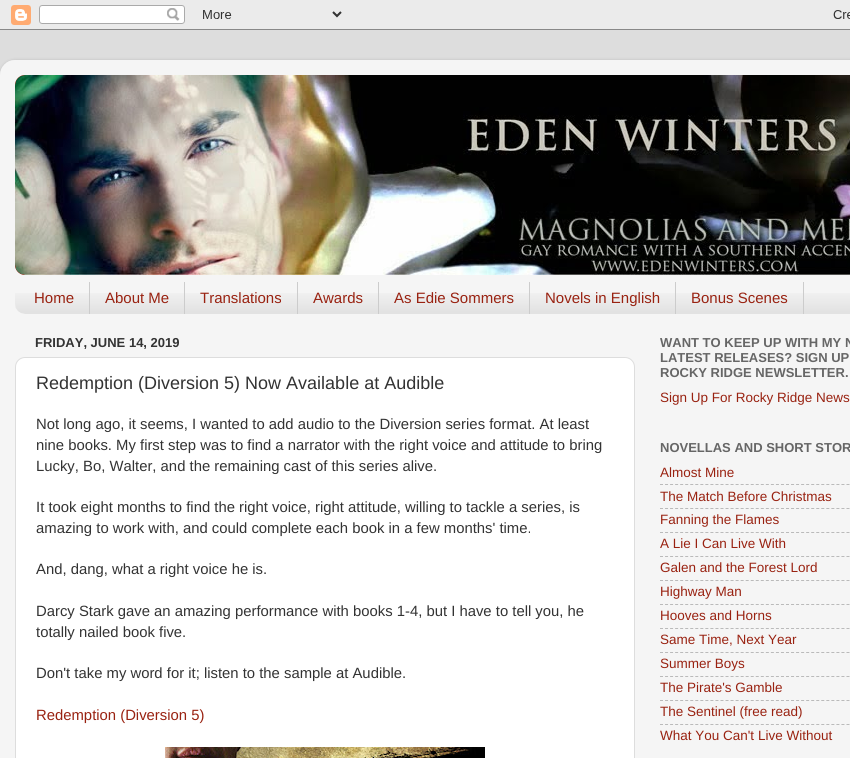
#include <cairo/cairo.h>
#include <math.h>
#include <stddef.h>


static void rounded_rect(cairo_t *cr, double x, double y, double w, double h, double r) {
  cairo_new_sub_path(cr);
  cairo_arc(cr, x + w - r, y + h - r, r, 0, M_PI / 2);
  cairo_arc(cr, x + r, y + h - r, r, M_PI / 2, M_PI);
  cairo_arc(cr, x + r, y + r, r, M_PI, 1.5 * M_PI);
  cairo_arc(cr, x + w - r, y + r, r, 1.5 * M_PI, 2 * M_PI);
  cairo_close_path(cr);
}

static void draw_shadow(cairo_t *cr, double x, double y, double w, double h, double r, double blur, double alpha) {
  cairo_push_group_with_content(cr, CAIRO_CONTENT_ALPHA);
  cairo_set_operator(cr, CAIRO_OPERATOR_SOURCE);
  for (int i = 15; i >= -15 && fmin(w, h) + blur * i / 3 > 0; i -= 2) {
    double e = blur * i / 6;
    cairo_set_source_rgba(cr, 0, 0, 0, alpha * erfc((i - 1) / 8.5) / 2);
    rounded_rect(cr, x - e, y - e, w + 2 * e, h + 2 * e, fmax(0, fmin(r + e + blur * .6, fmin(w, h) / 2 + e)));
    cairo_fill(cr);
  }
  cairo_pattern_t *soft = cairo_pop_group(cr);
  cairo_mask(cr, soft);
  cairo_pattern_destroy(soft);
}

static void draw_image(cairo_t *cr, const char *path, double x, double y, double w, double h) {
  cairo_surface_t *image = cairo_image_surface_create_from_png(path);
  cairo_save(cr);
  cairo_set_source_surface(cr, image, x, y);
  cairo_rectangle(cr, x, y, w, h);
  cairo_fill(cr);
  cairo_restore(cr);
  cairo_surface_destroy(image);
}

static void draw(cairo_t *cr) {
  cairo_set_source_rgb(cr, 221 / 255.0, 221 / 255.0, 221 / 255.0);
  cairo_paint(cr);
  draw_image(cr, "images/1.png", 0, 0, 850, 30);
  cairo_save(cr);
  cairo_set_fill_rule(cr, CAIRO_FILL_RULE_EVEN_ODD);
  cairo_new_path(cr);
  cairo_move_to(cr, 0, 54);
  cairo_line_to(cr, 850, 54);
  cairo_line_to(cr, 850, 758);
  cairo_line_to(cr, 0, 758);
  cairo_close_path(cr);
  cairo_move_to(cr, 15, 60);
  cairo_line_to(cr, 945, 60);
  cairo_curve_to(cr, 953.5, 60, 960, 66.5, 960, 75);
  cairo_line_to(cr, 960, 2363);
  cairo_curve_to(cr, 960, 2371.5, 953.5, 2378, 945, 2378);
  cairo_line_to(cr, 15, 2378);
  cairo_curve_to(cr, 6.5, 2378, 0, 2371.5, 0, 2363);
  cairo_line_to(cr, 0, 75);
  cairo_curve_to(cr, 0, 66.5, 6.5, 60, 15, 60);
  cairo_close_path(cr);
  cairo_clip(cr);
  cairo_set_source_rgb(cr, 0, 0, 0);
  draw_shadow(cr, 0, 60, 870, 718, 15, 1.5, 0.15);
  cairo_restore(cr);
  draw_image(cr, "images/2.png", 0, 60, 850, 698);
  cairo_set_source_rgb(cr, 153 / 255.0, 34 / 255.0, 17 / 255.0);
  rounded_rect(cr, 15, 75, 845, 200, 10);
  cairo_fill(cr);
  draw_image(cr, "images/3.png", 15, 75, 10, 10);
  draw_image(cr, "images/4.png", 15, 75, 835, 200);
  draw_image(cr, "images/5.png", 15, 293, 835, 21);
  cairo_set_source_rgb(cr, 204 / 255.0, 204 / 255.0, 204 / 255.0);
  cairo_rectangle(cr, 89, 282, 1, 32);
  cairo_fill(cr);
  cairo_rectangle(cr, 184, 282, 1, 32);
  cairo_fill(cr);
  cairo_rectangle(cr, 297, 282, 1, 32);
  cairo_fill(cr);
  cairo_rectangle(cr, 378, 282, 1, 32);
  cairo_fill(cr);
  cairo_rectangle(cr, 529, 282, 1, 32);
  cairo_fill(cr);
  cairo_rectangle(cr, 675, 282, 1, 32);
  cairo_fill(cr);
  cairo_rectangle(cr, 803, 282, 1, 32);
  cairo_fill(cr);
  cairo_set_source_rgb(cr, 1, 1, 1);
  rounded_rect(cr, 15.5, 357.5, 619, 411, 9.5);
  cairo_fill_preserve(cr);
  cairo_set_source_rgb(cr, 221 / 255.0, 221 / 255.0, 221 / 255.0);
  cairo_set_line_width(cr, 1);
  cairo_stroke(cr);
  draw_image(cr, "images/6.png", 165, 747, 320, 11);
  cairo_new_path(cr);
  cairo_move_to(cr, 660, 484.5);
  cairo_line_to(cr, 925, 484.5);
  cairo_set_source_rgb(cr, 186 / 255.0, 186 / 255.0, 186 / 255.0);
  cairo_set_dash(cr, (double[]){3, 2.04}, 2, 0);
  cairo_stroke(cr);
  cairo_new_path(cr);
  cairo_move_to(cr, 660, 508.5);
  cairo_line_to(cr, 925, 508.5);
  cairo_stroke(cr);
  cairo_new_path(cr);
  cairo_move_to(cr, 660, 532.5);
  cairo_line_to(cr, 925, 532.5);
  cairo_stroke(cr);
  cairo_new_path(cr);
  cairo_move_to(cr, 660, 556.5);
  cairo_line_to(cr, 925, 556.5);
  cairo_stroke(cr);
  cairo_new_path(cr);
  cairo_move_to(cr, 660, 580.5);
  cairo_line_to(cr, 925, 580.5);
  cairo_stroke(cr);
  cairo_new_path(cr);
  cairo_move_to(cr, 660, 604.5);
  cairo_line_to(cr, 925, 604.5);
  cairo_stroke(cr);
  cairo_new_path(cr);
  cairo_move_to(cr, 660, 628.5);
  cairo_line_to(cr, 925, 628.5);
  cairo_stroke(cr);
  cairo_new_path(cr);
  cairo_move_to(cr, 660, 652.5);
  cairo_line_to(cr, 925, 652.5);
  cairo_stroke(cr);
  cairo_new_path(cr);
  cairo_move_to(cr, 660, 676.5);
  cairo_line_to(cr, 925, 676.5);
  cairo_stroke(cr);
  cairo_new_path(cr);
  cairo_move_to(cr, 660, 700.5);
  cairo_line_to(cr, 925, 700.5);
  cairo_stroke(cr);
  cairo_new_path(cr);
  cairo_move_to(cr, 660, 724.5);
  cairo_line_to(cr, 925, 724.5);
  cairo_stroke(cr);
  cairo_select_font_face(cr, "Liberation Sans", CAIRO_FONT_SLANT_NORMAL, CAIRO_FONT_WEIGHT_NORMAL);
  cairo_set_font_size(cr, 15);
  cairo_set_source_rgb(cr, 153 / 255.0, 34 / 255.0, 17 / 255.0);
  cairo_move_to(cr, 34, 303);
  cairo_show_text(cr, "Home");
  cairo_move_to(cr, 105, 303);
  cairo_show_text(cr, "About Me");
  cairo_move_to(cr, 200, 303);
  cairo_show_text(cr, "Translations");
  cairo_move_to(cr, 313, 303);
  cairo_show_text(cr, "Awards");
  cairo_move_to(cr, 394, 303);
  cairo_show_text(cr, "As Edie Sommers");
  cairo_move_to(cr, 545, 303);
  cairo_show_text(cr, "Novels in English");
  cairo_move_to(cr, 691, 303);
  cairo_show_text(cr, "Bonus Scenes");
  cairo_select_font_face(cr, "Liberation Sans", CAIRO_FONT_SLANT_NORMAL, CAIRO_FONT_WEIGHT_BOLD);
  cairo_set_font_size(cr, 13);
  cairo_set_source_rgb(cr, 51 / 255.0, 51 / 255.0, 51 / 255.0);
  cairo_move_to(cr, 35, 347);
  cairo_show_text(cr, "FRIDAY, JUNE 14, 2019");
  cairo_select_font_face(cr, "Liberation Sans", CAIRO_FONT_SLANT_NORMAL, CAIRO_FONT_WEIGHT_NORMAL);
  cairo_set_font_size(cr, 18);
  cairo_move_to(cr, 36, 389);
  cairo_show_text(cr, "Redemption (Diversion 5) Now Available at Audible");
  cairo_set_font_size(cr, 14.85);
  cairo_move_to(cr, 36, 429);
  cairo_show_text(cr, "Not long ago, it seems, I wanted to add audio to the Diversion series format. At least");
  cairo_move_to(cr, 36, 450);
  cairo_show_text(cr, "nine books. My first step was to find a narrator with the right voice and attitude to bring");
  cairo_move_to(cr, 36, 471);
  cairo_show_text(cr, "Lucky, Bo, Walter, and the remaining cast of this series alive.");
  cairo_move_to(cr, 36, 512);
  cairo_show_text(cr, "It took eight months to find the right voice, right attitude, willing to tackle a series, is");
  cairo_move_to(cr, 36, 533);
  cairo_show_text(cr, "amazing to work with, and could complete each book in a few months' time.");
  cairo_move_to(cr, 36, 574);
  cairo_show_text(cr, "And, dang, what a right voice he is.");
  cairo_move_to(cr, 36, 616);
  cairo_show_text(cr, "Darcy Stark gave an amazing performance with books 1-4, but I have to tell you, he");
  cairo_move_to(cr, 36, 637);
  cairo_show_text(cr, "totally nailed book five.");
  cairo_move_to(cr, 36, 678);
  cairo_show_text(cr, "Don't take my word for it; listen to the sample at Audible.");
  cairo_set_source_rgb(cr, 153 / 255.0, 34 / 255.0, 17 / 255.0);
  cairo_move_to(cr, 36, 720);
  cairo_show_text(cr, "Redemption (Diversion 5)");
  cairo_select_font_face(cr, "Liberation Sans", CAIRO_FONT_SLANT_NORMAL, CAIRO_FONT_WEIGHT_BOLD);
  cairo_set_font_size(cr, 13);
  cairo_set_source_rgb(cr, 102 / 255.0, 102 / 255.0, 102 / 255.0);
  cairo_move_to(cr, 660, 347);
  cairo_show_text(cr, "WANT TO KEEP UP WITH MY N");
  cairo_move_to(cr, 660, 362);
  cairo_show_text(cr, "LATEST RELEASES? SIGN UP");
  cairo_move_to(cr, 660, 377);
  cairo_show_text(cr, "ROCKY RIDGE NEWSLETTER.");
  cairo_select_font_face(cr, "Liberation Sans", CAIRO_FONT_SLANT_NORMAL, CAIRO_FONT_WEIGHT_NORMAL);
  cairo_set_font_size(cr, 13.5);
  cairo_set_source_rgb(cr, 153 / 255.0, 34 / 255.0, 17 / 255.0);
  cairo_move_to(cr, 660, 402);
  cairo_show_text(cr, "Sign Up For Rocky Ridge News");
  cairo_select_font_face(cr, "Liberation Sans", CAIRO_FONT_SLANT_NORMAL, CAIRO_FONT_WEIGHT_BOLD);
  cairo_set_font_size(cr, 13);
  cairo_set_source_rgb(cr, 102 / 255.0, 102 / 255.0, 102 / 255.0);
  cairo_move_to(cr, 660, 452);
  cairo_show_text(cr, "NOVELLAS AND SHORT STOR");
  cairo_select_font_face(cr, "Liberation Sans", CAIRO_FONT_SLANT_NORMAL, CAIRO_FONT_WEIGHT_NORMAL);
  cairo_set_font_size(cr, 13.5);
  cairo_set_source_rgb(cr, 153 / 255.0, 34 / 255.0, 17 / 255.0);
  cairo_move_to(cr, 660, 477);
  cairo_show_text(cr, "Almost Mine");
  cairo_move_to(cr, 660, 501);
  cairo_show_text(cr, "The Match Before Christmas");
  cairo_move_to(cr, 660, 524);
  cairo_show_text(cr, "Fanning the Flames");
  cairo_move_to(cr, 660, 548);
  cairo_show_text(cr, "A Lie I Can Live With");
  cairo_move_to(cr, 660, 572);
  cairo_show_text(cr, "Galen and the Forest Lord");
  cairo_move_to(cr, 660, 596);
  cairo_show_text(cr, "Highway Man");
  cairo_move_to(cr, 660, 620);
  cairo_show_text(cr, "Hooves and Horns");
  cairo_move_to(cr, 660, 644);
  cairo_show_text(cr, "Same Time, Next Year");
  cairo_move_to(cr, 660, 668);
  cairo_show_text(cr, "Summer Boys");
  cairo_move_to(cr, 660, 692);
  cairo_show_text(cr, "The Pirate's Gamble");
  cairo_move_to(cr, 660, 716);
  cairo_show_text(cr, "The Sentinel (free read)");
  cairo_move_to(cr, 660, 740);
  cairo_show_text(cr, "What You Can't Live Without");
}

int main(void) {
  cairo_surface_t *surface = cairo_image_surface_create(CAIRO_FORMAT_RGB24, 850, 758);
  cairo_t *cr = cairo_create(surface);
  cairo_font_options_t *options = cairo_font_options_create();
  cairo_font_options_set_hint_metrics(options, CAIRO_HINT_METRICS_OFF);
  cairo_font_options_set_hint_style(options, CAIRO_HINT_STYLE_NONE);
  cairo_set_font_options(cr, options);
  cairo_set_miter_limit(cr, 4);
  draw(cr);
  cairo_surface_write_to_png(surface, "out.png");
  cairo_font_options_destroy(options);
  cairo_destroy(cr);
  cairo_surface_destroy(surface);
  return 0;
}
